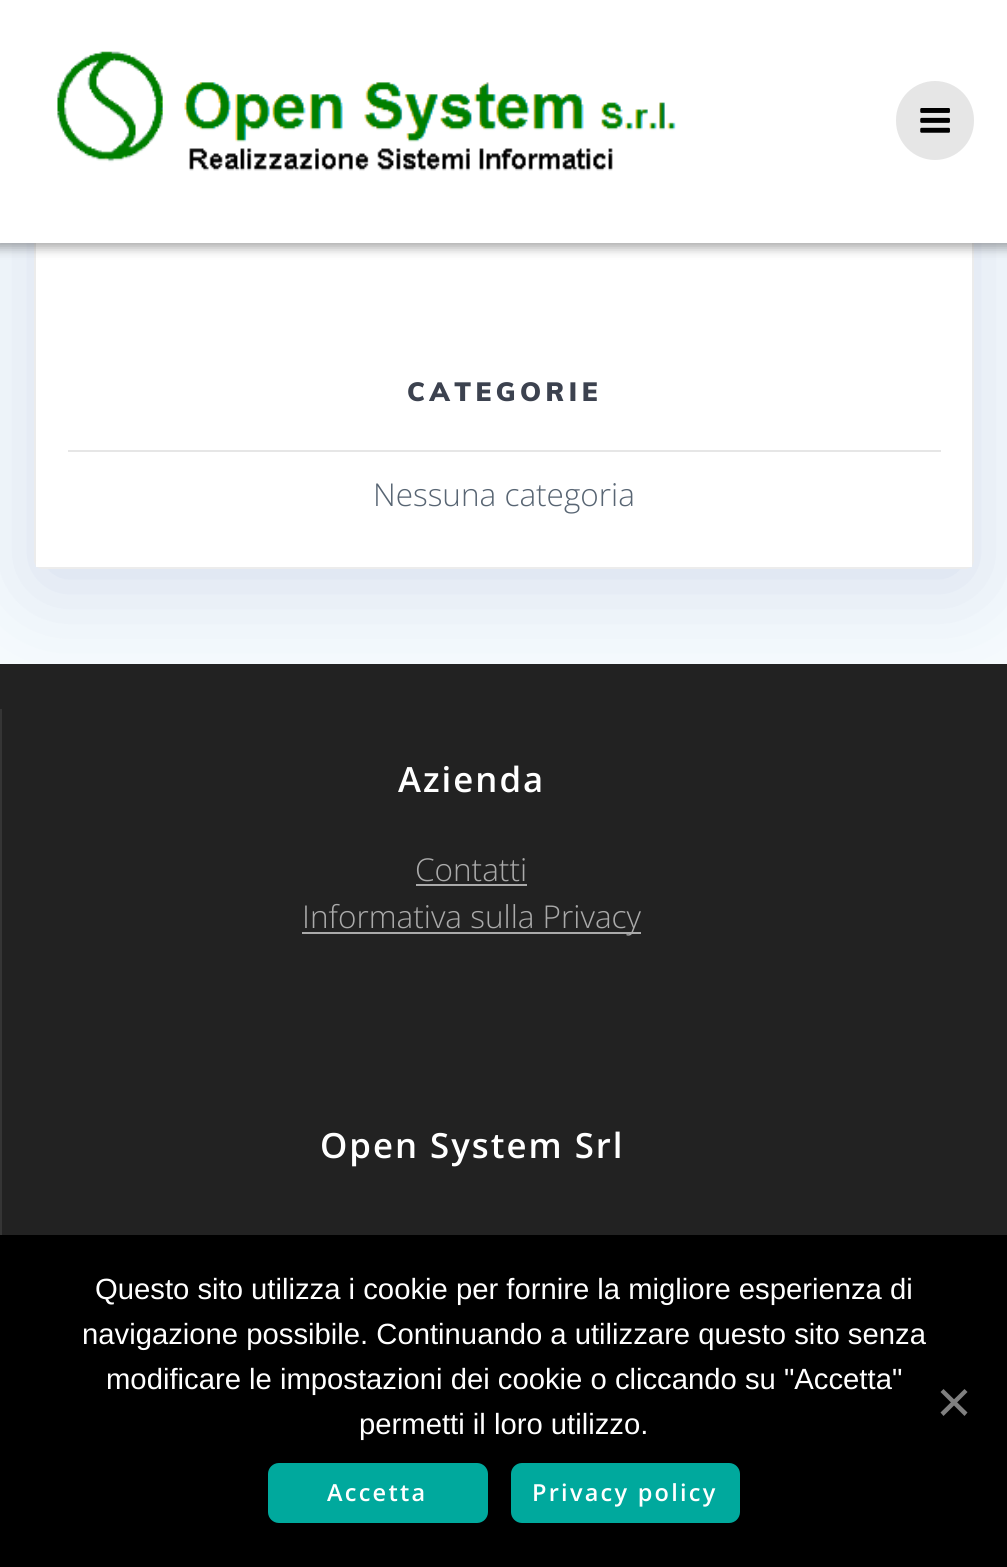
#include <cairo/cairo.h>
#include <math.h>
#include <stddef.h>


static void draw_spaced(cairo_t *cr, double x, double y, const char *s, double letter, double word) {
  cairo_move_to(cr, x, y);
  while (*s) {
    char ch[5] = {0};
    int n = 0;
    do ch[n++] = *s++; while ((*s & 0xC0) == 0x80);
    cairo_show_text(cr, ch);
    cairo_rel_move_to(cr, letter + word * (*ch == ' '), 0);
  }
}

static void rounded_rect(cairo_t *cr, double x, double y, double w, double h, double r) {
  cairo_new_sub_path(cr);
  cairo_arc(cr, x + w - r, y + h - r, r, 0, M_PI / 2);
  cairo_arc(cr, x + r, y + h - r, r, M_PI / 2, M_PI);
  cairo_arc(cr, x + r, y + r, r, M_PI, 1.5 * M_PI);
  cairo_arc(cr, x + w - r, y + r, r, 1.5 * M_PI, 2 * M_PI);
  cairo_close_path(cr);
}

static void draw_shadow(cairo_t *cr, double x, double y, double w, double h, double r, double blur, double alpha) {
  cairo_push_group_with_content(cr, CAIRO_CONTENT_ALPHA);
  cairo_set_operator(cr, CAIRO_OPERATOR_SOURCE);
  for (int i = 15; i >= -15 && fmin(w, h) + blur * i / 3 > 0; i -= 2) {
    double e = blur * i / 6;
    cairo_set_source_rgba(cr, 0, 0, 0, alpha * erfc((i - 1) / 8.5) / 2);
    rounded_rect(cr, x - e, y - e, w + 2 * e, h + 2 * e, fmax(0, fmin(r + e + blur * .6, fmin(w, h) / 2 + e)));
    cairo_fill(cr);
  }
  cairo_pattern_t *soft = cairo_pop_group(cr);
  cairo_mask(cr, soft);
  cairo_pattern_destroy(soft);
}

static void draw_image(cairo_t *cr, const char *path, double x, double y, double w, double h) {
  cairo_surface_t *image = cairo_image_surface_create_from_png(path);
  cairo_save(cr);
  cairo_set_source_surface(cr, image, x, y);
  cairo_rectangle(cr, x, y, w, h);
  cairo_fill(cr);
  cairo_restore(cr);
  cairo_surface_destroy(image);
}

static void draw(cairo_t *cr) {
  cairo_set_source_rgb(cr, 34 / 255.0, 34 / 255.0, 34 / 255.0);
  cairo_paint(cr);
  cairo_set_source_rgb(cr, 245 / 255.0, 250 / 255.0, 253 / 255.0);
  cairo_rectangle(cr, 0, 243, 1007, 421);
  cairo_fill(cr);
  cairo_set_source_rgb(cr, 53 / 255.0, 53 / 255.0, 53 / 255.0);
  cairo_rectangle(cr, 0, 709, 2, 526);
  cairo_fill(cr);
  cairo_set_source_rgb(cr, 35 / 255.0, 69 / 255.0, 152 / 255.0);
  draw_shadow(cr, 34, -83, 940, 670, 9, 44.5, 0.15);
  cairo_set_source_rgb(cr, 1, 1, 1);
  rounded_rect(cr, 35, -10, 938, 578, 8);
  cairo_fill_preserve(cr);
  cairo_set_source_rgb(cr, 236 / 255.0, 236 / 255.0, 236 / 255.0);
  cairo_stroke(cr);
  cairo_set_source_rgb(cr, 0, 0, 0);
  draw_shadow(cr, -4, -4, 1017, 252, 0, 5.5, 0.33);
  cairo_set_source_rgb(cr, 1, 1, 1);
  cairo_rectangle(cr, 0, 0, 1007, 243);
  cairo_fill(cr);
  draw_image(cr, "images/1.png", 57, 51, 619, 120);
  cairo_set_source_rgb(cr, 230 / 255.0, 230 / 255.0, 230 / 255.0);
  rounded_rect(cr, 896, 81, 78, 79, 39);
  cairo_fill(cr);
  draw_image(cr, "images/2.png", 920, 108, 30, 25);
  cairo_set_source_rgb(cr, 1, 1, 1);
  cairo_rectangle(cr, 36, 561, 936, 6);
  cairo_fill(cr);
  cairo_set_source_rgb(cr, 230 / 255.0, 230 / 255.0, 230 / 255.0);
  cairo_rectangle(cr, 68, 450, 873, 2);
  cairo_fill(cr);
  cairo_set_source_rgb(cr, 170 / 255.0, 170 / 255.0, 170 / 255.0);
  cairo_rectangle(cr, 416, 884, 111, 2);
  cairo_fill(cr);
  cairo_rectangle(cr, 302, 932, 339, 2);
  cairo_fill(cr);
  cairo_set_source_rgb(cr, 0, 0, 0);
  cairo_rectangle(cr, 0, 1235, 1007, 332);
  cairo_fill(cr);
  cairo_set_source_rgb(cr, 128 / 255.0, 128 / 255.0, 128 / 255.0);
  cairo_new_path(cr);
  cairo_move_to(cr, 964.5, 1389);
  cairo_line_to(cr, 967.5, 1392);
  cairo_line_to(cr, 943.5, 1416);
  cairo_line_to(cr, 940.5, 1412.5);
  cairo_close_path(cr);
  cairo_fill(cr);
  cairo_new_path(cr);
  cairo_move_to(cr, 940.5, 1392);
  cairo_line_to(cr, 943.5, 1389);
  cairo_line_to(cr, 967.5, 1412.5);
  cairo_line_to(cr, 964.5, 1416);
  cairo_close_path(cr);
  cairo_fill(cr);
  cairo_set_source_rgb(cr, 0, 169 / 255.0, 157 / 255.0);
  rounded_rect(cr, 268, 1463, 220, 60, 11);
  cairo_fill(cr);
  rounded_rect(cr, 511, 1463, 229, 60, 11);
  cairo_fill(cr);
  cairo_select_font_face(cr, "Muli Black", CAIRO_FONT_SLANT_NORMAL, CAIRO_FONT_WEIGHT_NORMAL);
  cairo_set_font_size(cr, 26.25);
  cairo_set_source_rgb(cr, 60 / 255.0, 66 / 255.0, 79 / 255.0);
  draw_spaced(cr, 407, 401, "CATEGORIE", 4.5, 0);
  cairo_select_font_face(cr, "Open Sans Light", CAIRO_FONT_SLANT_NORMAL, CAIRO_FONT_WEIGHT_NORMAL);
  cairo_set_font_size(cr, 31.5);
  cairo_set_source_rgb(cr, 88 / 255.0, 101 / 255.0, 115 / 255.0);
  cairo_move_to(cr, 373, 506);
  cairo_show_text(cr, "Nessuna categoria");
  cairo_select_font_face(cr, "Open Sans SemiBold", CAIRO_FONT_SLANT_NORMAL, CAIRO_FONT_WEIGHT_NORMAL);
  cairo_set_font_size(cr, 34.75);
  cairo_set_source_rgb(cr, 1, 1, 1);
  draw_spaced(cr, 398, 792, "Azienda", 2, 0);
  cairo_select_font_face(cr, "Open Sans Light", CAIRO_FONT_SLANT_NORMAL, CAIRO_FONT_WEIGHT_NORMAL);
  cairo_set_font_size(cr, 31.5);
  cairo_set_source_rgb(cr, 170 / 255.0, 170 / 255.0, 170 / 255.0);
  cairo_move_to(cr, 415, 881);
  cairo_show_text(cr, "Contatti");
  cairo_move_to(cr, 302, 928);
  cairo_show_text(cr, "Informativa sulla Privacy");
  cairo_select_font_face(cr, "Open Sans SemiBold", CAIRO_FONT_SLANT_NORMAL, CAIRO_FONT_WEIGHT_NORMAL);
  cairo_set_font_size(cr, 34.75);
  cairo_set_source_rgb(cr, 1, 1, 1);
  draw_spaced(cr, 320, 1158, "Open System Srl", 2, 0);
  cairo_select_font_face(cr, "Liberation Sans", CAIRO_FONT_SLANT_NORMAL, CAIRO_FONT_WEIGHT_NORMAL);
  cairo_set_font_size(cr, 29.25);
  cairo_move_to(cr, 95, 1299);
  cairo_show_text(cr, "Questo sito utilizza i cookie per fornire la migliore esperienza di");
  cairo_move_to(cr, 82, 1344);
  cairo_show_text(cr, "navigazione possibile. Continuando a utilizzare questo sito senza");
  cairo_move_to(cr, 106, 1389);
  cairo_show_text(cr, "modificare le impostazioni dei cookie o cliccando su \"Accetta\"");
  cairo_move_to(cr, 359, 1434);
  cairo_show_text(cr, "permetti il loro utilizzo.");
  cairo_select_font_face(cr, "Open Sans SemiBold", CAIRO_FONT_SLANT_NORMAL, CAIRO_FONT_WEIGHT_NORMAL);
  cairo_set_font_size(cr, 23.5);
  draw_spaced(cr, 327, 1501, "Accetta", 2.25, 0);
  draw_spaced(cr, 532, 1501, "Privacy policy", 2.25, 0);
}

int main(void) {
  cairo_surface_t *surface = cairo_image_surface_create(CAIRO_FORMAT_RGB24, 1007, 1567);
  cairo_t *cr = cairo_create(surface);
  cairo_font_options_t *options = cairo_font_options_create();
  cairo_font_options_set_hint_metrics(options, CAIRO_HINT_METRICS_OFF);
  cairo_font_options_set_hint_style(options, CAIRO_HINT_STYLE_NONE);
  cairo_set_font_options(cr, options);
  cairo_set_miter_limit(cr, 4);
  draw(cr);
  cairo_surface_write_to_png(surface, "out.png");
  cairo_font_options_destroy(options);
  cairo_destroy(cr);
  cairo_surface_destroy(surface);
  return 0;
}
